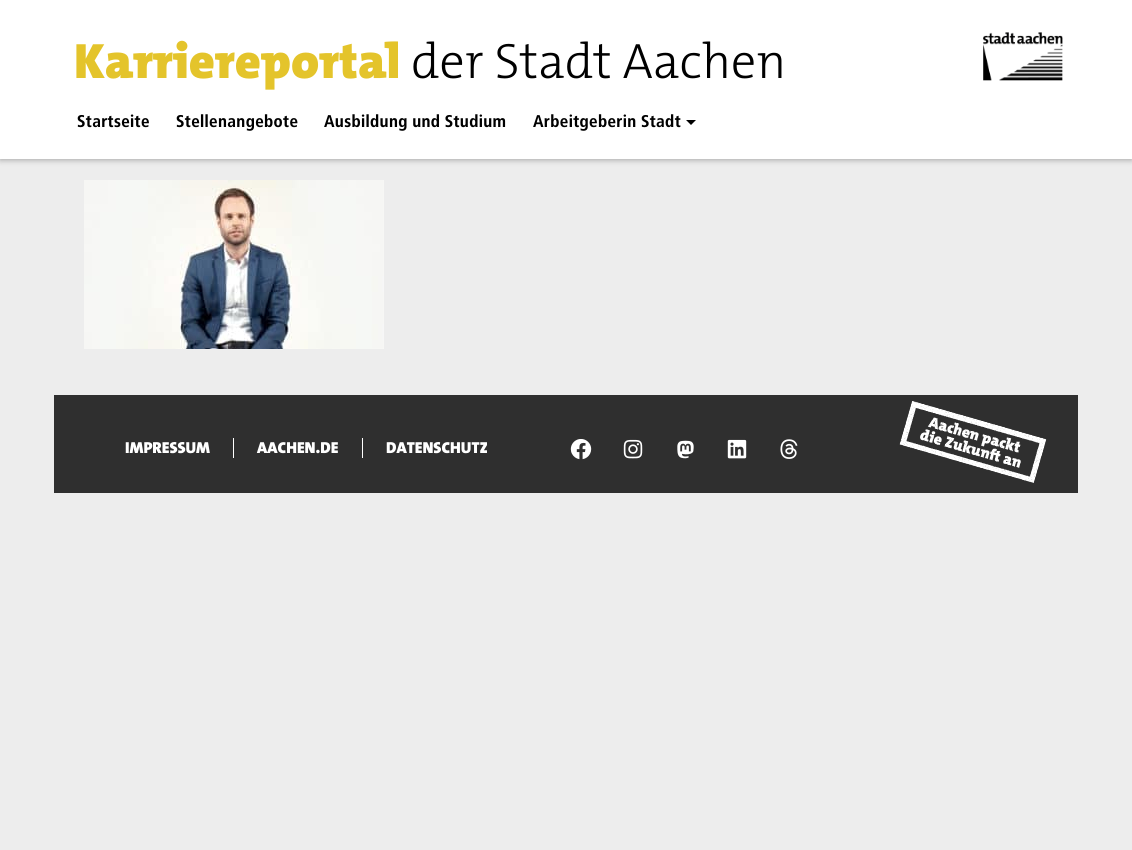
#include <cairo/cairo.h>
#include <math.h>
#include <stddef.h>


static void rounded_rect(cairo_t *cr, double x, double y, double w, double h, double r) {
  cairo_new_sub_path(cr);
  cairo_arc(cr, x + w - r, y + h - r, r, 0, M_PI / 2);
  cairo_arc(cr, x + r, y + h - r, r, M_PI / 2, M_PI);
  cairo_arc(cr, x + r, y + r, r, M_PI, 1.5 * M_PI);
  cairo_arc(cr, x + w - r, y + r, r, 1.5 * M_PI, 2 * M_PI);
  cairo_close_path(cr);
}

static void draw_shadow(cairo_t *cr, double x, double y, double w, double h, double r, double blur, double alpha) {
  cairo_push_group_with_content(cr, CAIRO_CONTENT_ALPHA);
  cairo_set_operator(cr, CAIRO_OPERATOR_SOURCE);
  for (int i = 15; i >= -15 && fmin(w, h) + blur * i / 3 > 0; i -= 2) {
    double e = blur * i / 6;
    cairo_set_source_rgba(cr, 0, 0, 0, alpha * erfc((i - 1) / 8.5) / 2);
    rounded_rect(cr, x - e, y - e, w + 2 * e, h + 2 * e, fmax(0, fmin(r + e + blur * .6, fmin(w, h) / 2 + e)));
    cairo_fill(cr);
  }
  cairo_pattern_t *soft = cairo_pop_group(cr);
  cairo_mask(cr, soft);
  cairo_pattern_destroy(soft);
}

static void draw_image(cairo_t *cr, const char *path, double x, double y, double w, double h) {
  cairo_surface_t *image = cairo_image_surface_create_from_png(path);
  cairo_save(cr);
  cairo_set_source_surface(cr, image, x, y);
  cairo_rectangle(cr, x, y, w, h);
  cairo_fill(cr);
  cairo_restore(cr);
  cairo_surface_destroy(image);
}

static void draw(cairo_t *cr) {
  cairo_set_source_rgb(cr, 237 / 255.0, 237 / 255.0, 237 / 255.0);
  cairo_paint(cr);
  cairo_set_source_rgb(cr, 0, 0, 0);
  draw_shadow(cr, 0, 1, 1132, 159, 0, 3, 0.3);
  cairo_set_source_rgb(cr, 1, 1, 1);
  cairo_rectangle(cr, 0, 0, 1132, 159);
  cairo_fill(cr);
  draw_image(cr, "images/1.png", 983, 32, 80, 49);
  cairo_set_source_rgb(cr, 0, 0, 0);
  cairo_new_path(cr);
  cairo_move_to(cr, 686, 120);
  cairo_line_to(cr, 696, 120);
  cairo_line_to(cr, 691, 125);
  cairo_close_path(cr);
  cairo_fill(cr);
  draw_image(cr, "images/2.png", 84, 180, 300, 169);
  cairo_set_source_rgb(cr, 47 / 255.0, 47 / 255.0, 47 / 255.0);
  cairo_rectangle(cr, 54, 395, 1024, 98);
  cairo_fill(cr);
  cairo_set_source_rgb(cr, 1, 1, 1);
  cairo_rectangle(cr, 233, 438, 1, 20);
  cairo_fill(cr);
  cairo_rectangle(cr, 362, 438, 1, 20);
  cairo_fill(cr);
  draw_image(cr, "images/3.png", 570, 439, 22, 21);
  draw_image(cr, "images/4.png", 623, 439, 20, 20);
  draw_image(cr, "images/5.png", 677, 440, 17, 19);
  draw_image(cr, "images/6.png", 727, 439, 20, 20);
  draw_image(cr, "images/7.png", 780, 439, 18, 20);
  draw_image(cr, "images/8.png", 899, 401, 148, 82);
  cairo_select_font_face(cr, "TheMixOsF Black", CAIRO_FONT_SLANT_NORMAL, CAIRO_FONT_WEIGHT_NORMAL);
  cairo_set_font_size(cr, 50);
  cairo_set_source_rgb(cr, 228 / 255.0, 196 / 255.0, 43 / 255.0);
  cairo_move_to(cr, 74, 78);
  cairo_show_text(cr, "Karriereportal");
  cairo_select_font_face(cr, "TheMixOsF Light", CAIRO_FONT_SLANT_NORMAL, CAIRO_FONT_WEIGHT_NORMAL);
  cairo_set_source_rgb(cr, 0, 0, 0);
  cairo_move_to(cr, 411, 78);
  cairo_show_text(cr, "der Stadt Aachen");
  cairo_select_font_face(cr, "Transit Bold", CAIRO_FONT_SLANT_NORMAL, CAIRO_FONT_WEIGHT_NORMAL);
  cairo_set_font_size(cr, 17);
  cairo_move_to(cr, 77, 127);
  cairo_show_text(cr, "Startseite");
  cairo_move_to(cr, 176, 127);
  cairo_show_text(cr, "Stellenangebote");
  cairo_move_to(cr, 324, 127);
  cairo_show_text(cr, "Ausbildung und Studium");
  cairo_move_to(cr, 533, 127);
  cairo_show_text(cr, "Arbeitgeberin Stadt");
  cairo_select_font_face(cr, "TheMixOsF Black", CAIRO_FONT_SLANT_NORMAL, CAIRO_FONT_WEIGHT_NORMAL);
  cairo_set_font_size(cr, 16);
  cairo_set_source_rgb(cr, 1, 1, 1);
  cairo_move_to(cr, 125, 453);
  cairo_show_text(cr, "IMPRESSUM");
  cairo_move_to(cr, 257, 453);
  cairo_show_text(cr, "AACHEN.DE");
  cairo_move_to(cr, 386, 453);
  cairo_show_text(cr, "DATENSCHUTZ");
}

int main(void) {
  cairo_surface_t *surface = cairo_image_surface_create(CAIRO_FORMAT_RGB24, 1132, 850);
  cairo_t *cr = cairo_create(surface);
  cairo_font_options_t *options = cairo_font_options_create();
  cairo_font_options_set_hint_metrics(options, CAIRO_HINT_METRICS_OFF);
  cairo_font_options_set_hint_style(options, CAIRO_HINT_STYLE_NONE);
  cairo_set_font_options(cr, options);
  cairo_set_miter_limit(cr, 4);
  draw(cr);
  cairo_surface_write_to_png(surface, "out.png");
  cairo_font_options_destroy(options);
  cairo_destroy(cr);
  cairo_surface_destroy(surface);
  return 0;
}
